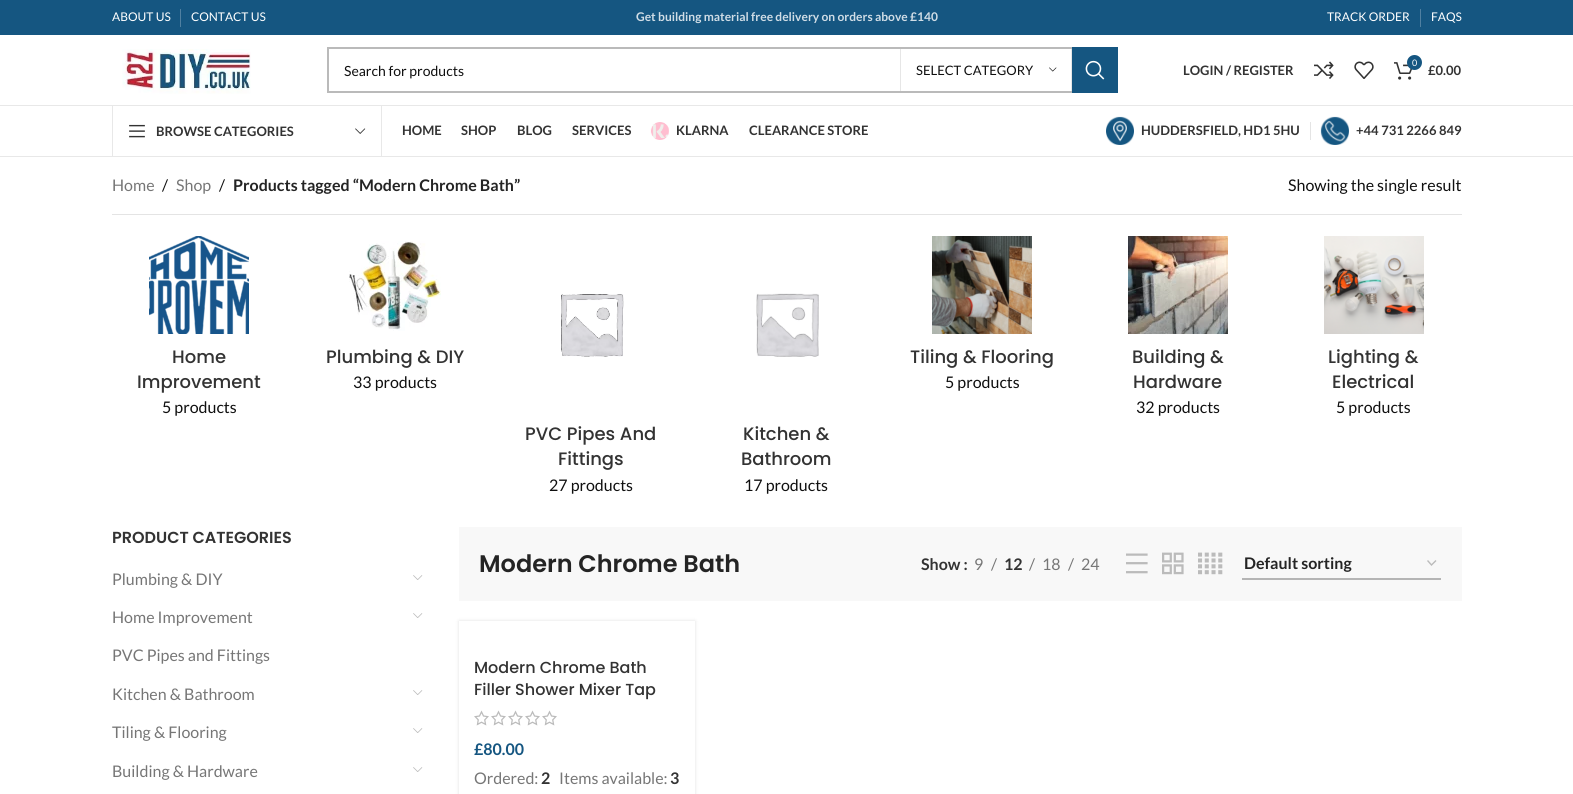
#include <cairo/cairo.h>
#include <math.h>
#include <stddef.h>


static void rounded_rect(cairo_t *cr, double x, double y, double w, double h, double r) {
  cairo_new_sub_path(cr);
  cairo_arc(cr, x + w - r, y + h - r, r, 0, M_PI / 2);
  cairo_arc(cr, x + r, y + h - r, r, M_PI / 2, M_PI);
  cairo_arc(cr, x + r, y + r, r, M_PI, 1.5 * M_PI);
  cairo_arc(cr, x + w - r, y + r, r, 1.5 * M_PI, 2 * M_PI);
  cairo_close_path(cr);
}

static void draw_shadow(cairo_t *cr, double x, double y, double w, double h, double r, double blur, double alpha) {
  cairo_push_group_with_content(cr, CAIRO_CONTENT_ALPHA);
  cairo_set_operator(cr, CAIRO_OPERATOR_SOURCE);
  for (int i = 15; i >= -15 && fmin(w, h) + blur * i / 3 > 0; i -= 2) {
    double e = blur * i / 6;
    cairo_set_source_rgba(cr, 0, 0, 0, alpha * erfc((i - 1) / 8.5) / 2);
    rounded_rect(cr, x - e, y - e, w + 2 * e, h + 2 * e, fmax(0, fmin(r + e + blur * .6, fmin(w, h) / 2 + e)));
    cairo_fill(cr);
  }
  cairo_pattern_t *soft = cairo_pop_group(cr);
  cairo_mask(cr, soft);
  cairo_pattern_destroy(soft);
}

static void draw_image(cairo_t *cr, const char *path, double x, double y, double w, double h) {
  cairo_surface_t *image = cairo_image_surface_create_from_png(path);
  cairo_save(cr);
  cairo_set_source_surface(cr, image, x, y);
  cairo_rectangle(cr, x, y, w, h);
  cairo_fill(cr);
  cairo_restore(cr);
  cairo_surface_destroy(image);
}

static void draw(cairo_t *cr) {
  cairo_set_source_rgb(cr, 1, 1, 1);
  cairo_paint(cr);
  cairo_set_source_rgb(cr, 21 / 255.0, 86 / 255.0, 129 / 255.0);
  cairo_rectangle(cr, 0, 0, 1573, 35);
  cairo_fill(cr);
  cairo_set_source_rgb(cr, 80 / 255.0, 128 / 255.0, 161 / 255.0);
  cairo_rectangle(cr, 180, 9, 1, 18);
  cairo_fill(cr);
  cairo_rectangle(cr, 1420, 9, 1, 18);
  cairo_fill(cr);
  cairo_set_source_rgb(cr, 232 / 255.0, 232 / 255.0, 232 / 255.0);
  cairo_rectangle(cr, 0, 105, 1573, 1);
  cairo_fill(cr);
  draw_image(cr, "images/1.png", 122, 49, 129, 45);
  cairo_rectangle(cr, 328, 48, 789, 44);
  cairo_set_source_rgb(cr, 186 / 255.0, 186 / 255.0, 186 / 255.0);
  cairo_stroke(cr);
  cairo_set_source_rgb(cr, 230 / 255.0, 230 / 255.0, 230 / 255.0);
  cairo_rectangle(cr, 1071, 49, 1, 42);
  cairo_fill(cr);
  cairo_rectangle(cr, 900, 49, 1, 42);
  cairo_fill(cr);
  draw_image(cr, "images/2.png", 1049, 67, 8, 5);
  cairo_set_source_rgb(cr, 21 / 255.0, 86 / 255.0, 129 / 255.0);
  cairo_rectangle(cr, 1072, 47, 46, 46);
  cairo_fill(cr);
  draw_image(cr, "images/3.png", 1085, 60, 20, 20);
  draw_image(cr, "images/4.png", 1314, 61, 20, 18);
  draw_image(cr, "images/5.png", 1354, 61, 20, 18);
  draw_image(cr, "images/6.png", 1394, 62, 19, 18);
  cairo_arc(cr, 1414.5, 62.5, 7.5, 0, 2 * M_PI);
  cairo_fill(cr);
  cairo_set_source_rgb(cr, 232 / 255.0, 232 / 255.0, 232 / 255.0);
  cairo_rectangle(cr, 0, 156, 1573, 1);
  cairo_fill(cr);
  cairo_rectangle(cr, 112.5, 105.5, 269, 51);
  cairo_set_line_width(cr, 1);
  cairo_stroke(cr);
  draw_image(cr, "images/7.png", 129, 124, 16, 14);
  draw_image(cr, "images/8.png", 355, 128, 11, 6);
  draw_image(cr, "images/9.png", 650, 122, 19, 18);
  draw_image(cr, "images/10.png", 1106, 116, 28, 29);
  cairo_set_source_rgb(cr, 228 / 255.0, 228 / 255.0, 228 / 255.0);
  cairo_rectangle(cr, 1310, 122, 1, 18);
  cairo_fill(cr);
  draw_image(cr, "images/11.png", 1320, 116, 29, 29);
  cairo_rectangle(cr, 112, 214, 1350, 1);
  cairo_fill(cr);
  draw_image(cr, "images/12.png", 149, 236, 100, 98);
  draw_image(cr, "images/13.png", 349, 241, 92, 90);
  draw_image(cr, "images/14.png", 932, 236, 100, 98);
  draw_image(cr, "images/15.png", 1128, 236, 100, 98);
  draw_image(cr, "images/16.png", 1324, 236, 100, 98);
  draw_image(cr, "images/17.png", 561, 294, 63, 63);
  draw_image(cr, "images/18.png", 756, 293, 63, 64);
  draw_image(cr, "images/19.png", 413, 575, 10, 5);
  draw_image(cr, "images/19.png", 413, 613, 10, 5);
  draw_image(cr, "images/19.png", 413, 690, 10, 5);
  draw_image(cr, "images/19.png", 413, 728, 10, 5);
  draw_image(cr, "images/19.png", 413, 767, 10, 5);
  cairo_set_source_rgb(cr, 248 / 255.0, 248 / 255.0, 248 / 255.0);
  cairo_rectangle(cr, 459, 527, 1003, 74);
  cairo_fill(cr);
  draw_image(cr, "images/20.png", 1126, 553, 22, 21);
  draw_image(cr, "images/21.png", 1162, 552, 22, 23);
  draw_image(cr, "images/22.png", 1198, 552, 25, 23);
  cairo_new_path(cr);
  cairo_move_to(cr, 1427.5, 560.5);
  cairo_line_to(cr, 1431.5, 565);
  cairo_line_to(cr, 1436, 560.5);
  cairo_set_source_rgb(cr, 187 / 255.0, 187 / 255.0, 187 / 255.0);
  cairo_set_line_width(cr, 1.4);
  cairo_stroke(cr);
  cairo_set_source_rgb(cr, 181 / 255.0, 181 / 255.0, 181 / 255.0);
  cairo_rectangle(cr, 1242, 578, 199, 2);
  cairo_fill(cr);
  cairo_save(cr);
  cairo_set_fill_rule(cr, CAIRO_FILL_RULE_EVEN_ODD);
  cairo_new_path(cr);
  cairo_move_to(cr, 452, 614);
  cairo_line_to(cr, 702, 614);
  cairo_line_to(cr, 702, 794);
  cairo_line_to(cr, 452, 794);
  cairo_close_path(cr);
  cairo_move_to(cr, 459, 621);
  cairo_line_to(cr, 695, 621);
  cairo_line_to(cr, 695, 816);
  cairo_line_to(cr, 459, 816);
  cairo_close_path(cr);
  cairo_clip(cr);
  cairo_set_source_rgb(cr, 0, 0, 0);
  draw_shadow(cr, 459, 621, 236, 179, 0, 2, 0.12);
  cairo_restore(cr);
  draw_image(cr, "images/23.png", 474, 710, 83, 16);
  cairo_select_font_face(cr, "Lato", CAIRO_FONT_SLANT_NORMAL, CAIRO_FONT_WEIGHT_NORMAL);
  cairo_set_font_size(cr, 12);
  cairo_set_source_rgb(cr, 1, 1, 1);
  cairo_move_to(cr, 112, 21);
  cairo_show_text(cr, "ABOUT US");
  cairo_move_to(cr, 191, 21);
  cairo_show_text(cr, "CONTACT US");
  cairo_select_font_face(cr, "Lato", CAIRO_FONT_SLANT_NORMAL, CAIRO_FONT_WEIGHT_BOLD);
  cairo_set_source_rgb(cr, 208 / 255.0, 221 / 255.0, 230 / 255.0);
  cairo_move_to(cr, 636, 21);
  cairo_show_text(cr, "Get building material free delivery on orders above £140");
  cairo_select_font_face(cr, "Lato", CAIRO_FONT_SLANT_NORMAL, CAIRO_FONT_WEIGHT_NORMAL);
  cairo_set_source_rgb(cr, 1, 1, 1);
  cairo_move_to(cr, 1327, 21);
  cairo_show_text(cr, "TRACK ORDER");
  cairo_move_to(cr, 1431, 21);
  cairo_show_text(cr, "FAQS");
  cairo_set_font_size(cr, 14);
  cairo_set_source_rgb(cr, 15 / 255.0, 15 / 255.0, 15 / 255.0);
  cairo_move_to(cr, 344, 76);
  cairo_show_text(cr, "Search for products");
  cairo_set_font_size(cr, 13);
  cairo_move_to(cr, 916, 75);
  cairo_show_text(cr, "SELECT CATEGORY");
  cairo_select_font_face(cr, "Lato", CAIRO_FONT_SLANT_NORMAL, CAIRO_FONT_WEIGHT_BOLD);
  cairo_set_source_rgb(cr, 51 / 255.0, 51 / 255.0, 51 / 255.0);
  cairo_move_to(cr, 1183, 75);
  cairo_show_text(cr, "LOGIN / REGISTER");
  cairo_select_font_face(cr, "Lato", CAIRO_FONT_SLANT_NORMAL, CAIRO_FONT_WEIGHT_NORMAL);
  cairo_set_font_size(cr, 9);
  cairo_set_source_rgb(cr, 1, 1, 1);
  cairo_move_to(cr, 1412, 66);
  cairo_show_text(cr, "0");
  cairo_select_font_face(cr, "Lato", CAIRO_FONT_SLANT_NORMAL, CAIRO_FONT_WEIGHT_BOLD);
  cairo_set_font_size(cr, 13);
  cairo_set_source_rgb(cr, 51 / 255.0, 51 / 255.0, 51 / 255.0);
  cairo_move_to(cr, 1428, 75);
  cairo_show_text(cr, "£0.00");
  cairo_move_to(cr, 156, 136);
  cairo_show_text(cr, "BROWSE CATEGORIES");
  cairo_move_to(cr, 402, 135);
  cairo_show_text(cr, "HOME");
  cairo_move_to(cr, 461, 135);
  cairo_show_text(cr, "SHOP");
  cairo_move_to(cr, 517, 135);
  cairo_show_text(cr, "BLOG");
  cairo_move_to(cr, 572, 135);
  cairo_show_text(cr, "SERVICES");
  cairo_move_to(cr, 676, 135);
  cairo_show_text(cr, "KLARNA");
  cairo_move_to(cr, 749, 135);
  cairo_show_text(cr, "CLEARANCE STORE");
  cairo_move_to(cr, 1141, 135);
  cairo_show_text(cr, "HUDDERSFIELD, HD1 5HU");
  cairo_move_to(cr, 1356, 135);
  cairo_show_text(cr, "+44 731 2266 849");
  cairo_select_font_face(cr, "Lato", CAIRO_FONT_SLANT_NORMAL, CAIRO_FONT_WEIGHT_NORMAL);
  cairo_set_font_size(cr, 16);
  cairo_set_source_rgb(cr, 118 / 255.0, 118 / 255.0, 118 / 255.0);
  cairo_move_to(cr, 112, 191);
  cairo_show_text(cr, "Home");
  cairo_set_source_rgb(cr, 15 / 255.0, 15 / 255.0, 15 / 255.0);
  cairo_move_to(cr, 162, 191);
  cairo_show_text(cr, "/");
  cairo_set_source_rgb(cr, 118 / 255.0, 118 / 255.0, 118 / 255.0);
  cairo_move_to(cr, 176, 191);
  cairo_show_text(cr, "Shop");
  cairo_set_source_rgb(cr, 15 / 255.0, 15 / 255.0, 15 / 255.0);
  cairo_move_to(cr, 219, 191);
  cairo_show_text(cr, "/");
  cairo_select_font_face(cr, "Lato", CAIRO_FONT_SLANT_NORMAL, CAIRO_FONT_WEIGHT_BOLD);
  cairo_set_source_rgb(cr, 36 / 255.0, 36 / 255.0, 36 / 255.0);
  cairo_move_to(cr, 233, 191);
  cairo_show_text(cr, "Products tagged “Modern Chrome Bath”");
  cairo_select_font_face(cr, "Lato", CAIRO_FONT_SLANT_NORMAL, CAIRO_FONT_WEIGHT_NORMAL);
  cairo_set_source_rgb(cr, 15 / 255.0, 15 / 255.0, 15 / 255.0);
  cairo_move_to(cr, 1288, 191);
  cairo_show_text(cr, "Showing the single result");
  cairo_select_font_face(cr, "Poppins Medium", CAIRO_FONT_SLANT_NORMAL, CAIRO_FONT_WEIGHT_NORMAL);
  cairo_set_font_size(cr, 18);
  cairo_set_source_rgb(cr, 51 / 255.0, 51 / 255.0, 51 / 255.0);
  cairo_move_to(cr, 172, 363);
  cairo_show_text(cr, "Home");
  cairo_move_to(cr, 137, 388);
  cairo_show_text(cr, "Improvement");
  cairo_select_font_face(cr, "Lato", CAIRO_FONT_SLANT_NORMAL, CAIRO_FONT_WEIGHT_NORMAL);
  cairo_set_font_size(cr, 16);
  cairo_set_source_rgb(cr, 15 / 255.0, 15 / 255.0, 15 / 255.0);
  cairo_move_to(cr, 162, 413);
  cairo_show_text(cr, "5 products");
  cairo_select_font_face(cr, "Poppins Medium", CAIRO_FONT_SLANT_NORMAL, CAIRO_FONT_WEIGHT_NORMAL);
  cairo_set_font_size(cr, 18);
  cairo_set_source_rgb(cr, 51 / 255.0, 51 / 255.0, 51 / 255.0);
  cairo_move_to(cr, 326, 363);
  cairo_show_text(cr, "Plumbing & DIY");
  cairo_select_font_face(cr, "Lato", CAIRO_FONT_SLANT_NORMAL, CAIRO_FONT_WEIGHT_NORMAL);
  cairo_set_font_size(cr, 16);
  cairo_set_source_rgb(cr, 15 / 255.0, 15 / 255.0, 15 / 255.0);
  cairo_move_to(cr, 353, 388);
  cairo_show_text(cr, "33 products");
  cairo_select_font_face(cr, "Poppins Medium", CAIRO_FONT_SLANT_NORMAL, CAIRO_FONT_WEIGHT_NORMAL);
  cairo_set_font_size(cr, 18);
  cairo_set_source_rgb(cr, 51 / 255.0, 51 / 255.0, 51 / 255.0);
  cairo_move_to(cr, 910, 363);
  cairo_show_text(cr, "Tiling & Flooring");
  cairo_select_font_face(cr, "Lato", CAIRO_FONT_SLANT_NORMAL, CAIRO_FONT_WEIGHT_NORMAL);
  cairo_set_font_size(cr, 16);
  cairo_set_source_rgb(cr, 15 / 255.0, 15 / 255.0, 15 / 255.0);
  cairo_move_to(cr, 945, 388);
  cairo_show_text(cr, "5 products");
  cairo_select_font_face(cr, "Poppins Medium", CAIRO_FONT_SLANT_NORMAL, CAIRO_FONT_WEIGHT_NORMAL);
  cairo_set_font_size(cr, 18);
  cairo_set_source_rgb(cr, 51 / 255.0, 51 / 255.0, 51 / 255.0);
  cairo_move_to(cr, 1132, 363);
  cairo_show_text(cr, "Building &");
  cairo_move_to(cr, 1133, 388);
  cairo_show_text(cr, "Hardware");
  cairo_select_font_face(cr, "Lato", CAIRO_FONT_SLANT_NORMAL, CAIRO_FONT_WEIGHT_NORMAL);
  cairo_set_font_size(cr, 16);
  cairo_set_source_rgb(cr, 15 / 255.0, 15 / 255.0, 15 / 255.0);
  cairo_move_to(cr, 1136, 413);
  cairo_show_text(cr, "32 products");
  cairo_select_font_face(cr, "Poppins Medium", CAIRO_FONT_SLANT_NORMAL, CAIRO_FONT_WEIGHT_NORMAL);
  cairo_set_font_size(cr, 18);
  cairo_set_source_rgb(cr, 51 / 255.0, 51 / 255.0, 51 / 255.0);
  cairo_move_to(cr, 1328, 363);
  cairo_show_text(cr, "Lighting &");
  cairo_move_to(cr, 1332, 388);
  cairo_show_text(cr, "Electrical");
  cairo_select_font_face(cr, "Lato", CAIRO_FONT_SLANT_NORMAL, CAIRO_FONT_WEIGHT_NORMAL);
  cairo_set_font_size(cr, 16);
  cairo_set_source_rgb(cr, 15 / 255.0, 15 / 255.0, 15 / 255.0);
  cairo_move_to(cr, 1336, 413);
  cairo_show_text(cr, "5 products");
  cairo_select_font_face(cr, "Poppins Medium", CAIRO_FONT_SLANT_NORMAL, CAIRO_FONT_WEIGHT_NORMAL);
  cairo_set_font_size(cr, 18);
  cairo_set_source_rgb(cr, 51 / 255.0, 51 / 255.0, 51 / 255.0);
  cairo_move_to(cr, 525, 440);
  cairo_show_text(cr, "PVC Pipes And");
  cairo_move_to(cr, 558, 465);
  cairo_show_text(cr, "Fittings");
  cairo_select_font_face(cr, "Lato", CAIRO_FONT_SLANT_NORMAL, CAIRO_FONT_WEIGHT_NORMAL);
  cairo_set_font_size(cr, 16);
  cairo_set_source_rgb(cr, 15 / 255.0, 15 / 255.0, 15 / 255.0);
  cairo_move_to(cr, 549, 491);
  cairo_show_text(cr, "27 products");
  cairo_select_font_face(cr, "Poppins Medium", CAIRO_FONT_SLANT_NORMAL, CAIRO_FONT_WEIGHT_NORMAL);
  cairo_set_font_size(cr, 18);
  cairo_set_source_rgb(cr, 51 / 255.0, 51 / 255.0, 51 / 255.0);
  cairo_move_to(cr, 743, 440);
  cairo_show_text(cr, "Kitchen &");
  cairo_move_to(cr, 741, 465);
  cairo_show_text(cr, "Bathroom");
  cairo_select_font_face(cr, "Lato", CAIRO_FONT_SLANT_NORMAL, CAIRO_FONT_WEIGHT_NORMAL);
  cairo_set_font_size(cr, 16);
  cairo_set_source_rgb(cr, 15 / 255.0, 15 / 255.0, 15 / 255.0);
  cairo_move_to(cr, 744, 491);
  cairo_show_text(cr, "17 products");
  cairo_select_font_face(cr, "Poppins SemiBold", CAIRO_FONT_SLANT_NORMAL, CAIRO_FONT_WEIGHT_NORMAL);
  cairo_set_source_rgb(cr, 51 / 255.0, 51 / 255.0, 51 / 255.0);
  cairo_move_to(cr, 112, 543);
  cairo_show_text(cr, "PRODUCT CATEGORIES");
  cairo_select_font_face(cr, "Lato", CAIRO_FONT_SLANT_NORMAL, CAIRO_FONT_WEIGHT_NORMAL);
  cairo_set_source_rgb(cr, 118 / 255.0, 118 / 255.0, 118 / 255.0);
  cairo_move_to(cr, 112, 585);
  cairo_show_text(cr, "Plumbing & DIY");
  cairo_move_to(cr, 112, 623);
  cairo_show_text(cr, "Home Improvement");
  cairo_move_to(cr, 112, 661);
  cairo_show_text(cr, "PVC Pipes and Fittings");
  cairo_move_to(cr, 112, 700);
  cairo_show_text(cr, "Kitchen & Bathroom");
  cairo_move_to(cr, 112, 738);
  cairo_show_text(cr, "Tiling & Flooring");
  cairo_move_to(cr, 112, 777);
  cairo_show_text(cr, "Building & Hardware");
  cairo_select_font_face(cr, "Poppins SemiBold", CAIRO_FONT_SLANT_NORMAL, CAIRO_FONT_WEIGHT_NORMAL);
  cairo_set_font_size(cr, 24);
  cairo_set_source_rgb(cr, 36 / 255.0, 36 / 255.0, 36 / 255.0);
  cairo_move_to(cr, 479, 572);
  cairo_show_text(cr, "Modern Chrome Bath");
  cairo_select_font_face(cr, "Lato", CAIRO_FONT_SLANT_NORMAL, CAIRO_FONT_WEIGHT_BOLD);
  cairo_set_font_size(cr, 16);
  cairo_set_source_rgb(cr, 51 / 255.0, 51 / 255.0, 51 / 255.0);
  cairo_move_to(cr, 921, 570);
  cairo_show_text(cr, "Show :");
  cairo_select_font_face(cr, "Lato", CAIRO_FONT_SLANT_NORMAL, CAIRO_FONT_WEIGHT_NORMAL);
  cairo_set_source_rgb(cr, 118 / 255.0, 118 / 255.0, 118 / 255.0);
  cairo_move_to(cr, 974, 570);
  cairo_show_text(cr, "9");
  cairo_move_to(cr, 991, 570);
  cairo_show_text(cr, "/");
  cairo_select_font_face(cr, "Lato", CAIRO_FONT_SLANT_NORMAL, CAIRO_FONT_WEIGHT_BOLD);
  cairo_set_source_rgb(cr, 51 / 255.0, 51 / 255.0, 51 / 255.0);
  cairo_move_to(cr, 1004, 570);
  cairo_show_text(cr, "12");
  cairo_select_font_face(cr, "Lato", CAIRO_FONT_SLANT_NORMAL, CAIRO_FONT_WEIGHT_NORMAL);
  cairo_set_source_rgb(cr, 118 / 255.0, 118 / 255.0, 118 / 255.0);
  cairo_move_to(cr, 1029, 570);
  cairo_show_text(cr, "/");
  cairo_move_to(cr, 1042, 570);
  cairo_show_text(cr, "18");
  cairo_move_to(cr, 1068, 570);
  cairo_show_text(cr, "/");
  cairo_move_to(cr, 1081, 570);
  cairo_show_text(cr, "24");
  cairo_select_font_face(cr, "Lato", CAIRO_FONT_SLANT_NORMAL, CAIRO_FONT_WEIGHT_BOLD);
  cairo_set_source_rgb(cr, 36 / 255.0, 36 / 255.0, 36 / 255.0);
  cairo_move_to(cr, 1244, 569);
  cairo_show_text(cr, "Default sorting");
  cairo_select_font_face(cr, "Poppins Medium", CAIRO_FONT_SLANT_NORMAL, CAIRO_FONT_WEIGHT_NORMAL);
  cairo_set_source_rgb(cr, 51 / 255.0, 51 / 255.0, 51 / 255.0);
  cairo_move_to(cr, 474, 673);
  cairo_show_text(cr, "Modern Chrome Bath");
  cairo_move_to(cr, 474, 695);
  cairo_show_text(cr, "Filler Shower Mixer Tap");
  cairo_select_font_face(cr, "Lato", CAIRO_FONT_SLANT_NORMAL, CAIRO_FONT_WEIGHT_BOLD);
  cairo_set_source_rgb(cr, 21 / 255.0, 86 / 255.0, 129 / 255.0);
  cairo_move_to(cr, 474, 755);
  cairo_show_text(cr, "£80.00");
  cairo_select_font_face(cr, "Lato", CAIRO_FONT_SLANT_NORMAL, CAIRO_FONT_WEIGHT_NORMAL);
  cairo_set_source_rgb(cr, 118 / 255.0, 118 / 255.0, 118 / 255.0);
  cairo_move_to(cr, 474, 784);
  cairo_show_text(cr, "Ordered:");
  cairo_select_font_face(cr, "Lato", CAIRO_FONT_SLANT_NORMAL, CAIRO_FONT_WEIGHT_BOLD);
  cairo_set_source_rgb(cr, 51 / 255.0, 51 / 255.0, 51 / 255.0);
  cairo_move_to(cr, 541, 784);
  cairo_show_text(cr, "2");
  cairo_select_font_face(cr, "Lato", CAIRO_FONT_SLANT_NORMAL, CAIRO_FONT_WEIGHT_NORMAL);
  cairo_set_source_rgb(cr, 118 / 255.0, 118 / 255.0, 118 / 255.0);
  cairo_move_to(cr, 559, 784);
  cairo_show_text(cr, "Items available:");
  cairo_select_font_face(cr, "Lato", CAIRO_FONT_SLANT_NORMAL, CAIRO_FONT_WEIGHT_BOLD);
  cairo_set_source_rgb(cr, 51 / 255.0, 51 / 255.0, 51 / 255.0);
  cairo_move_to(cr, 670, 784);
  cairo_show_text(cr, "3");
}

int main(void) {
  cairo_surface_t *surface = cairo_image_surface_create(CAIRO_FORMAT_RGB24, 1573, 794);
  cairo_t *cr = cairo_create(surface);
  cairo_font_options_t *options = cairo_font_options_create();
  cairo_font_options_set_hint_metrics(options, CAIRO_HINT_METRICS_OFF);
  cairo_font_options_set_hint_style(options, CAIRO_HINT_STYLE_NONE);
  cairo_set_font_options(cr, options);
  cairo_set_miter_limit(cr, 4);
  draw(cr);
  cairo_surface_write_to_png(surface, "out.png");
  cairo_font_options_destroy(options);
  cairo_destroy(cr);
  cairo_surface_destroy(surface);
  return 0;
}
